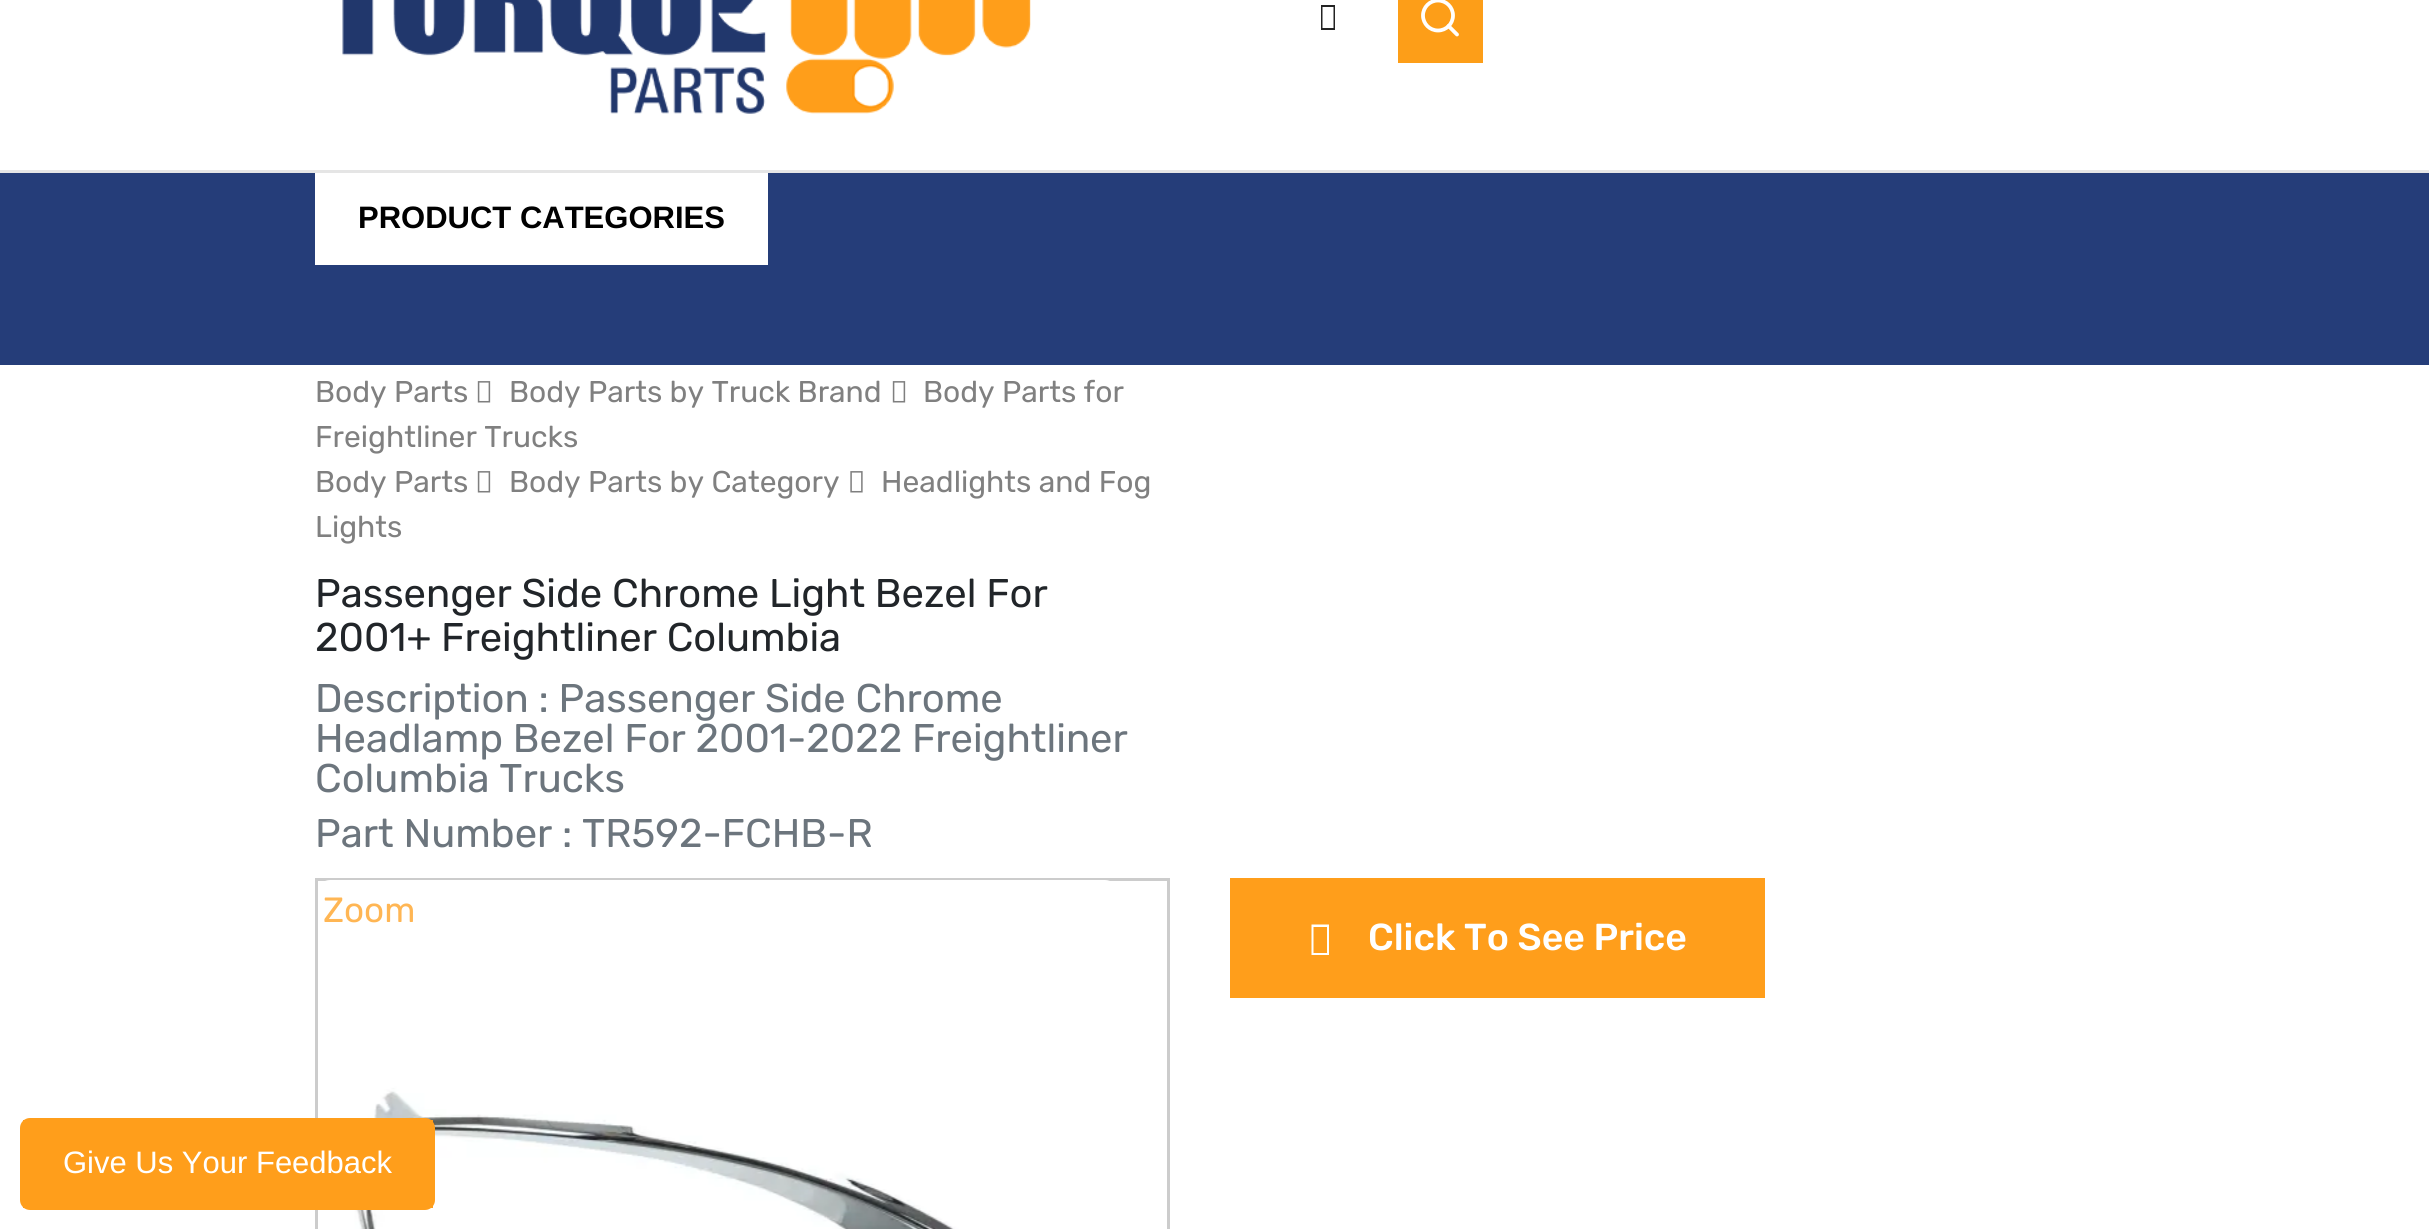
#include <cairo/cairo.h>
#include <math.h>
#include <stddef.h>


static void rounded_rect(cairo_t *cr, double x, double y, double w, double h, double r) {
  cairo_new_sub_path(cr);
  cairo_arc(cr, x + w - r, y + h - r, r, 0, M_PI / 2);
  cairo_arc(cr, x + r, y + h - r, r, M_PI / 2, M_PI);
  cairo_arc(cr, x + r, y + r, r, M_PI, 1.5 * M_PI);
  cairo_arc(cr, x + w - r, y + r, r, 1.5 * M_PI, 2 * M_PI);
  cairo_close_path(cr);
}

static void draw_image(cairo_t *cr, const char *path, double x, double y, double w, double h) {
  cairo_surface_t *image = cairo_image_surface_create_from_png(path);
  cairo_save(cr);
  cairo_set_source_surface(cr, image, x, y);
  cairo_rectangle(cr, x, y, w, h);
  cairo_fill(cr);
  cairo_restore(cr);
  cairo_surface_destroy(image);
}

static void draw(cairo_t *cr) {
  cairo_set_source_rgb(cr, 1, 1, 1);
  cairo_paint(cr);
  cairo_set_source_rgb(cr, 229 / 255.0, 229 / 255.0, 229 / 255.0);
  cairo_rectangle(cr, 0, 170, 2429, 3);
  cairo_fill(cr);
  draw_image(cr, "images/1.png", 342, 0, 689, 114);
  cairo_set_source_rgb(cr, 35 / 255.0, 35 / 255.0, 35 / 255.0);
  cairo_new_path(cr);
  cairo_move_to(cr, 1321, 30);
  cairo_line_to(cr, 1321, 5);
  cairo_line_to(cr, 1335, 5);
  cairo_line_to(cr, 1335, 30);
  cairo_close_path(cr);
  cairo_move_to(cr, 1322.5, 28);
  cairo_line_to(cr, 1333.5, 28);
  cairo_line_to(cr, 1333.5, 7);
  cairo_line_to(cr, 1322.5, 7);
  cairo_close_path(cr);
  cairo_fill(cr);
  cairo_set_source_rgb(cr, 253 / 255.0, 158 / 255.0, 24 / 255.0);
  cairo_rectangle(cr, 1398, 0, 85, 63);
  cairo_fill(cr);
  cairo_arc(cr, 1438, 15.5, 15, 0, 2 * M_PI);
  cairo_set_source_rgb(cr, 1, 1, 1);
  cairo_set_line_width(cr, 3.8);
  cairo_stroke(cr);
  cairo_new_path(cr);
  cairo_move_to(cr, 1457, 34.5);
  cairo_line_to(cr, 1448.5, 26);
  cairo_set_line_cap(cr, CAIRO_LINE_CAP_ROUND);
  cairo_set_line_join(cr, CAIRO_LINE_JOIN_ROUND);
  cairo_stroke(cr);
  cairo_set_source_rgb(cr, 37 / 255.0, 61 / 255.0, 121 / 255.0);
  cairo_rectangle(cr, 0, 173, 2429, 192);
  cairo_fill(cr);
  cairo_set_source_rgb(cr, 1, 1, 1);
  cairo_rectangle(cr, 315, 173, 453, 92);
  cairo_fill(cr);
  draw_image(cr, "images/2.png", 892, 381, 14, 22);
  draw_image(cr, "images/2.png", 477, 381, 14, 22);
  draw_image(cr, "images/3.png", 850, 471, 13, 22);
  draw_image(cr, "images/2.png", 477, 471, 14, 22);
  cairo_rectangle(cr, 316.5, 879.5, 852, 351);
  cairo_set_source_rgb(cr, 204 / 255.0, 204 / 255.0, 204 / 255.0);
  cairo_set_line_width(cr, 3);
  cairo_set_line_cap(cr, CAIRO_LINE_CAP_BUTT);
  cairo_set_line_join(cr, CAIRO_LINE_JOIN_MITER);
  cairo_stroke(cr);
  draw_image(cr, "images/4.png", 325, 880, 785, 349);
  cairo_set_source_rgb(cr, 1, 158 / 255.0, 27 / 255.0);
  cairo_rectangle(cr, 1230, 878, 535, 120);
  cairo_fill(cr);
  cairo_set_source_rgb(cr, 1, 1, 1);
  cairo_new_path(cr);
  cairo_move_to(cr, 1311.5, 955);
  cairo_line_to(cr, 1311.5, 924.5);
  cairo_line_to(cr, 1329, 924.5);
  cairo_line_to(cr, 1329, 955);
  cairo_close_path(cr);
  cairo_move_to(cr, 1313.5, 953);
  cairo_line_to(cr, 1327, 953);
  cairo_line_to(cr, 1327, 927);
  cairo_line_to(cr, 1313.5, 927);
  cairo_close_path(cr);
  cairo_fill(cr);
  rounded_rect(cr, 21.5, 1119.5, 412, 89, 8.5);
  cairo_set_source_rgb(cr, 1, 158 / 255.0, 27 / 255.0);
  cairo_stroke(cr);
  cairo_rectangle(cr, 23, 1120, 410, 88);
  cairo_fill(cr);
  cairo_select_font_face(cr, "Liberation Sans", CAIRO_FONT_SLANT_NORMAL, CAIRO_FONT_WEIGHT_BOLD);
  cairo_set_font_size(cr, 31);
  cairo_set_source_rgb(cr, 0, 0, 0);
  cairo_move_to(cr, 358, 228);
  cairo_show_text(cr, "PRODUCT CATEGORIES");
  cairo_select_font_face(cr, "Rubik", CAIRO_FONT_SLANT_NORMAL, CAIRO_FONT_WEIGHT_NORMAL);
  cairo_set_font_size(cr, 30);
  cairo_set_source_rgb(cr, 128 / 255.0, 128 / 255.0, 128 / 255.0);
  cairo_move_to(cr, 923, 402);
  cairo_show_text(cr, "Body Parts for");
  cairo_move_to(cr, 315, 447);
  cairo_show_text(cr, "Freightliner Trucks");
  cairo_move_to(cr, 315, 402);
  cairo_show_text(cr, "Body Parts");
  cairo_move_to(cr, 509, 402);
  cairo_show_text(cr, "Body Parts by Truck Brand");
  cairo_move_to(cr, 315, 492);
  cairo_show_text(cr, "Body Parts");
  cairo_move_to(cr, 881, 492);
  cairo_show_text(cr, "Headlights and Fog");
  cairo_move_to(cr, 315, 537);
  cairo_show_text(cr, "Lights");
  cairo_move_to(cr, 509, 492);
  cairo_show_text(cr, "Body Parts by Category");
  cairo_set_font_size(cr, 40);
  cairo_set_source_rgb(cr, 33 / 255.0, 37 / 255.0, 41 / 255.0);
  cairo_move_to(cr, 315, 607);
  cairo_show_text(cr, "Passenger Side Chrome Light Bezel For");
  cairo_move_to(cr, 315, 651);
  cairo_show_text(cr, "2001+ Freightliner Columbia");
  cairo_set_source_rgb(cr, 108 / 255.0, 117 / 255.0, 125 / 255.0);
  cairo_move_to(cr, 315, 712);
  cairo_show_text(cr, "Description : Passenger Side Chrome");
  cairo_move_to(cr, 315, 752);
  cairo_show_text(cr, "Headlamp Bezel For 2001-2022 Freightliner");
  cairo_move_to(cr, 315, 792);
  cairo_show_text(cr, "Columbia Trucks");
  cairo_move_to(cr, 315, 847);
  cairo_show_text(cr, "Part Number : TR592-FCHB-R");
  cairo_set_font_size(cr, 35);
  cairo_set_source_rgb(cr, 1, 182 / 255.0, 84 / 255.0);
  cairo_move_to(cr, 323, 922);
  cairo_show_text(cr, "Zoom");
  cairo_select_font_face(cr, "Rubik Medium", CAIRO_FONT_SLANT_NORMAL, CAIRO_FONT_WEIGHT_NORMAL);
  cairo_set_font_size(cr, 37.5);
  cairo_set_source_rgb(cr, 1, 1, 1);
  cairo_move_to(cr, 1368, 950);
  cairo_show_text(cr, "Click To See Price");
  cairo_select_font_face(cr, "Liberation Sans", CAIRO_FONT_SLANT_NORMAL, CAIRO_FONT_WEIGHT_NORMAL);
  cairo_set_font_size(cr, 31);
  cairo_move_to(cr, 63, 1173);
  cairo_show_text(cr, "Give Us Your Feedback");
}

int main(void) {
  cairo_surface_t *surface = cairo_image_surface_create(CAIRO_FORMAT_RGB24, 2429, 1229);
  cairo_t *cr = cairo_create(surface);
  cairo_font_options_t *options = cairo_font_options_create();
  cairo_font_options_set_hint_metrics(options, CAIRO_HINT_METRICS_OFF);
  cairo_font_options_set_hint_style(options, CAIRO_HINT_STYLE_NONE);
  cairo_set_font_options(cr, options);
  cairo_set_miter_limit(cr, 4);
  draw(cr);
  cairo_surface_write_to_png(surface, "out.png");
  cairo_font_options_destroy(options);
  cairo_destroy(cr);
  cairo_surface_destroy(surface);
  return 0;
}
